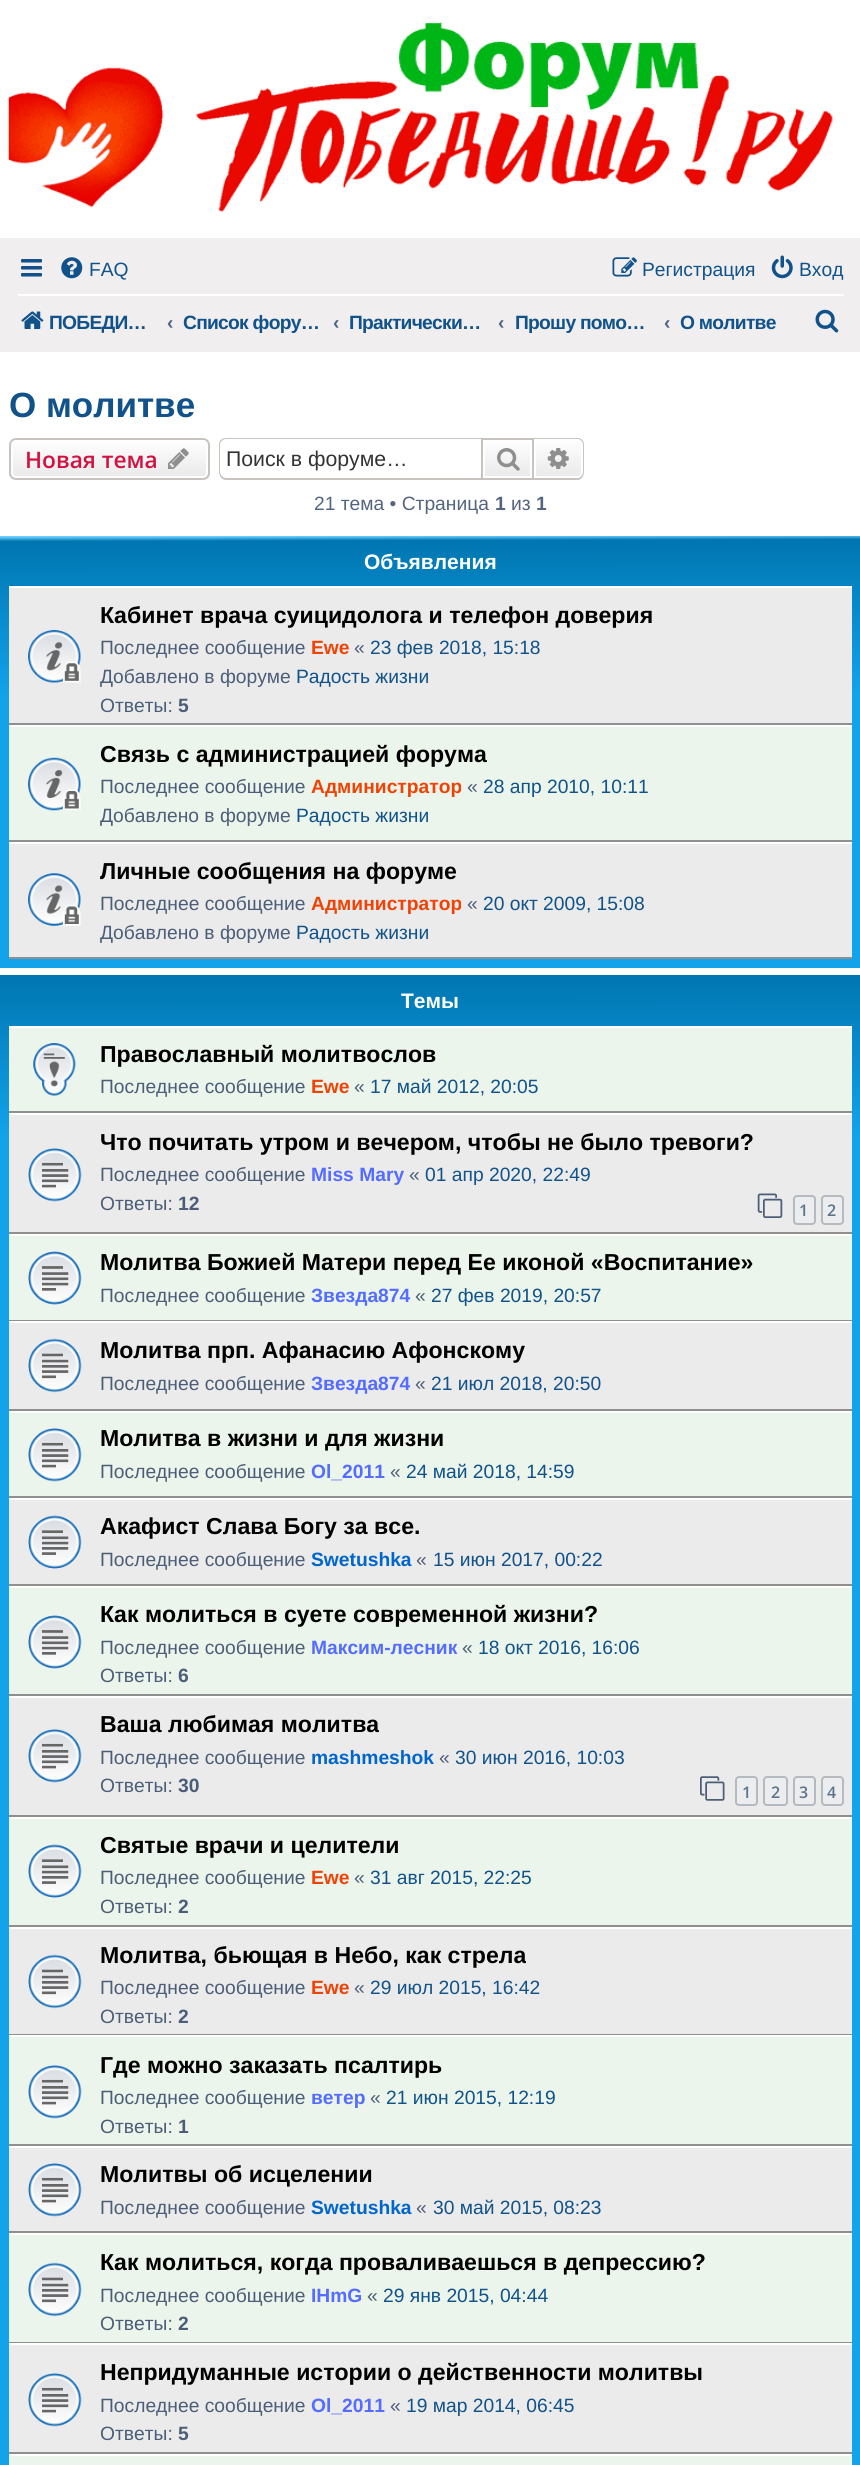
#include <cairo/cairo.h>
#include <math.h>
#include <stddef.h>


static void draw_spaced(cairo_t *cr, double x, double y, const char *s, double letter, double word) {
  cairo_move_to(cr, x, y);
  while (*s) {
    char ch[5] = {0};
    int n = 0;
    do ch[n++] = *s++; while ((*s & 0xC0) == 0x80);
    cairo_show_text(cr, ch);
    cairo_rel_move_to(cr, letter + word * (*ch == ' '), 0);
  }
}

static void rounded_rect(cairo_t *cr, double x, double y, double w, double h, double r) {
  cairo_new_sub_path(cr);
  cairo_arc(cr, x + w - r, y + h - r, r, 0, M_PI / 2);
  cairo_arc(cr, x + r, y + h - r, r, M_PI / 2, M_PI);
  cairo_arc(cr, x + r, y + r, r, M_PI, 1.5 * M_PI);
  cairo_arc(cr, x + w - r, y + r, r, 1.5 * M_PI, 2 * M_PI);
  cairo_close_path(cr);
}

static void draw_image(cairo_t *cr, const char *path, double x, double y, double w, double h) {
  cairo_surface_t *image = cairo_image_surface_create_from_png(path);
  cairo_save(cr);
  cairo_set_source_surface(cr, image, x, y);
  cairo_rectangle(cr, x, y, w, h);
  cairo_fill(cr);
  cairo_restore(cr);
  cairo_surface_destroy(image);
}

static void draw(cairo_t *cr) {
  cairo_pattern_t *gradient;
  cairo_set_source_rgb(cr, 1, 1, 1);
  cairo_paint(cr);
  draw_image(cr, "images/1.png", 8, 22, 825, 190);
  cairo_set_source_rgb(cr, 240 / 255.0, 238 / 255.0, 239 / 255.0);
  cairo_rectangle(cr, 0, 238, 860, 114);
  cairo_fill(cr);
  draw_image(cr, "images/2.png", 21, 259, 21, 18);
  draw_image(cr, "images/3.png", 61, 257, 22, 22);
  draw_image(cr, "images/4.png", 612, 257, 25, 20);
  draw_image(cr, "images/5.png", 771, 255, 22, 24);
  cairo_set_source_rgb(cr, 1, 1, 1);
  cairo_rectangle(cr, 18, 294, 826, 2);
  cairo_fill(cr);
  draw_image(cr, "images/6.png", 21, 311, 23, 18);
  draw_image(cr, "images/7.png", 815, 309, 24, 24);
  cairo_save(cr);
  rounded_rect(cr, 9, 438, 201, 42, 7);
  cairo_clip(cr);
  gradient = cairo_pattern_create_linear(109, 439, 109, 478);
  cairo_pattern_add_color_stop_rgba(gradient, 0, 1, 1, 1, 1);
  cairo_pattern_add_color_stop_rgba(gradient, 1, 233 / 255.0, 233 / 255.0, 233 / 255.0, 1);
  cairo_set_source(cr, gradient);
  cairo_pattern_destroy(gradient);
  cairo_rectangle(cr, 9, 439, 201, 39);
  cairo_fill(cr);
  cairo_restore(cr);
  rounded_rect(cr, 12, 440, 195, 37, 4);
  cairo_stroke(cr);
  rounded_rect(cr, 10, 439, 199, 40, 6);
  cairo_set_source_rgb(cr, 199 / 255.0, 195 / 255.0, 191 / 255.0);
  cairo_stroke(cr);
  draw_image(cr, "images/8.png", 168, 448, 21, 21);
  cairo_set_fill_rule(cr, CAIRO_FILL_RULE_EVEN_ODD);
  cairo_new_path(cr);
  cairo_move_to(cr, 226, 438);
  cairo_line_to(cr, 481, 438);
  cairo_line_to(cr, 481, 480);
  cairo_line_to(cr, 226, 480);
  cairo_curve_to(cr, 222, 480, 219, 476, 219, 472);
  cairo_line_to(cr, 219, 444);
  cairo_curve_to(cr, 219, 441, 222, 438, 226, 438);
  cairo_close_path(cr);
  cairo_move_to(cr, 226, 439);
  cairo_line_to(cr, 481, 439);
  cairo_line_to(cr, 481, 478);
  cairo_line_to(cr, 226, 478);
  cairo_curve_to(cr, 223, 478, 220, 475, 220, 472);
  cairo_line_to(cr, 220, 444);
  cairo_curve_to(cr, 220, 442, 223, 439, 226, 439);
  cairo_close_path(cr);
  cairo_fill(cr);
  gradient = cairo_pattern_create_linear(508, 439, 508, 478);
  cairo_pattern_add_color_stop_rgba(gradient, 0, 1, 1, 1, 1);
  cairo_pattern_add_color_stop_rgba(gradient, 1, 233 / 255.0, 233 / 255.0, 233 / 255.0, 1);
  cairo_set_source(cr, gradient);
  cairo_pattern_destroy(gradient);
  cairo_rectangle(cr, 485, 443, 45, 33);
  cairo_fill(cr);
  cairo_rectangle(cr, 482, 439, 51, 40);
  cairo_set_source_rgb(cr, 199 / 255.0, 195 / 255.0, 191 / 255.0);
  cairo_stroke(cr);
  draw_image(cr, "images/9.png", 497, 448, 23, 23);
  gradient = cairo_pattern_create_linear(558, 439, 558, 478);
  cairo_pattern_add_color_stop_rgba(gradient, 0, 1, 1, 1, 1);
  cairo_pattern_add_color_stop_rgba(gradient, 1, 233 / 255.0, 233 / 255.0, 233 / 255.0, 1);
  cairo_set_source(cr, gradient);
  cairo_pattern_destroy(gradient);
  cairo_new_path(cr);
  cairo_move_to(cr, 535, 440);
  cairo_line_to(cr, 578, 440);
  cairo_curve_to(cr, 580, 440, 582, 442, 582, 444);
  cairo_line_to(cr, 582, 473);
  cairo_curve_to(cr, 582, 475, 580, 477, 578, 477);
  cairo_line_to(cr, 535, 477);
  cairo_close_path(cr);
  cairo_fill_preserve(cr);
  cairo_set_source_rgb(cr, 1, 1, 1);
  cairo_stroke(cr);
  cairo_set_source_rgb(cr, 199 / 255.0, 195 / 255.0, 191 / 255.0);
  cairo_new_path(cr);
  cairo_move_to(cr, 534, 438);
  cairo_line_to(cr, 578, 438);
  cairo_curve_to(cr, 581, 438, 584, 441, 584, 444);
  cairo_line_to(cr, 584, 472);
  cairo_curve_to(cr, 584, 476, 581, 480, 578, 480);
  cairo_line_to(cr, 534, 480);
  cairo_close_path(cr);
  cairo_move_to(cr, 534, 439);
  cairo_line_to(cr, 578, 439);
  cairo_curve_to(cr, 580, 439, 583, 442, 583, 444);
  cairo_line_to(cr, 583, 472);
  cairo_curve_to(cr, 583, 475, 580, 478, 578, 478);
  cairo_line_to(cr, 534, 478);
  cairo_close_path(cr);
  cairo_fill(cr);
  draw_image(cr, "images/10.png", 547, 448, 22, 21);
  gradient = cairo_pattern_create_linear(430, 536, 431, 968);
  cairo_pattern_add_color_stop_rgba(gradient, 0, 106 / 255.0, 206 / 255.0, 1, 1);
  cairo_pattern_add_color_stop_rgba(gradient, 0.01, 0, 118 / 255.0, 177 / 255.0, 1);
  cairo_pattern_add_color_stop_rgba(gradient, 0.37, 18 / 255.0, 163 / 255.0, 235 / 255.0, 1);
  cairo_pattern_add_color_stop_rgba(gradient, 1, 18 / 255.0, 163 / 255.0, 235 / 255.0, 1);
  cairo_set_source(cr, gradient);
  cairo_pattern_destroy(gradient);
  cairo_rectangle(cr, 0, 536, 860, 432);
  cairo_fill(cr);
  cairo_set_source_rgb(cr, 235 / 255.0, 235 / 255.0, 235 / 255.0);
  cairo_rectangle(cr, 9, 588, 843, 135);
  cairo_fill(cr);
  cairo_set_source_rgb(cr, 1, 1, 1);
  cairo_rectangle(cr, 9, 586, 843, 2);
  cairo_fill(cr);
  cairo_set_source_rgb(cr, 143 / 255.0, 143 / 255.0, 143 / 255.0);
  cairo_rectangle(cr, 9, 723, 843, 2);
  cairo_fill(cr);
  draw_image(cr, "images/11.png", 28, 630, 53, 53);
  cairo_set_source_rgb(cr, 235 / 255.0, 245 / 255.0, 235 / 255.0);
  cairo_rectangle(cr, 9, 727, 843, 113);
  cairo_fill(cr);
  cairo_set_source_rgb(cr, 1, 1, 1);
  cairo_rectangle(cr, 9, 725, 843, 2);
  cairo_fill(cr);
  cairo_set_source_rgb(cr, 143 / 255.0, 143 / 255.0, 143 / 255.0);
  cairo_rectangle(cr, 9, 840, 843, 2);
  cairo_fill(cr);
  draw_image(cr, "images/12.png", 28, 757, 53, 54);
  cairo_set_source_rgb(cr, 235 / 255.0, 235 / 255.0, 235 / 255.0);
  cairo_rectangle(cr, 9, 844, 843, 113);
  cairo_fill(cr);
  cairo_set_source_rgb(cr, 1, 1, 1);
  cairo_rectangle(cr, 9, 842, 843, 2);
  cairo_fill(cr);
  cairo_set_source_rgb(cr, 143 / 255.0, 143 / 255.0, 143 / 255.0);
  cairo_rectangle(cr, 9, 957, 843, 2);
  cairo_fill(cr);
  draw_image(cr, "images/13.png", 28, 873, 53, 53);
  gradient = cairo_pattern_create_linear(430, 975, 431, 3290);
  cairo_pattern_add_color_stop_rgba(gradient, 0, 106 / 255.0, 206 / 255.0, 1, 1);
  cairo_pattern_add_color_stop_rgba(gradient, 0, 0, 118 / 255.0, 177 / 255.0, 1);
  cairo_pattern_add_color_stop_rgba(gradient, 0.07, 18 / 255.0, 163 / 255.0, 235 / 255.0, 1);
  cairo_pattern_add_color_stop_rgba(gradient, 1, 18 / 255.0, 163 / 255.0, 235 / 255.0, 1);
  cairo_set_source(cr, gradient);
  cairo_pattern_destroy(gradient);
  cairo_rectangle(cr, 0, 975, 860, 1490);
  cairo_fill(cr);
  cairo_set_source_rgb(cr, 235 / 255.0, 245 / 255.0, 235 / 255.0);
  cairo_rectangle(cr, 9, 1028, 843, 83);
  cairo_fill(cr);
  cairo_set_source_rgb(cr, 1, 1, 1);
  cairo_rectangle(cr, 9, 1026, 843, 2);
  cairo_fill(cr);
  cairo_set_source_rgb(cr, 143 / 255.0, 143 / 255.0, 143 / 255.0);
  cairo_rectangle(cr, 9, 1111, 843, 2);
  cairo_fill(cr);
  draw_image(cr, "images/14.png", 33, 1043, 43, 53);
  cairo_set_source_rgb(cr, 235 / 255.0, 235 / 255.0, 235 / 255.0);
  cairo_rectangle(cr, 9, 1115, 843, 117);
  cairo_fill(cr);
  cairo_set_source_rgb(cr, 1, 1, 1);
  cairo_rectangle(cr, 9, 1113, 843, 2);
  cairo_fill(cr);
  cairo_set_source_rgb(cr, 143 / 255.0, 143 / 255.0, 143 / 255.0);
  cairo_rectangle(cr, 9, 1232, 843, 2);
  cairo_fill(cr);
  draw_image(cr, "images/15.png", 28, 1148, 54, 54);
  draw_image(cr, "images/16.png", 757, 1193, 26, 25);
  cairo_set_source_rgb(cr, 236 / 255.0, 237 / 255.0, 238 / 255.0);
  rounded_rect(cr, 794, 1196, 21, 28, 3);
  cairo_fill_preserve(cr);
  cairo_set_source_rgb(cr, 180 / 255.0, 186 / 255.0, 192 / 255.0);
  cairo_stroke(cr);
  cairo_set_source_rgb(cr, 236 / 255.0, 237 / 255.0, 238 / 255.0);
  rounded_rect(cr, 822, 1196, 21, 28, 3);
  cairo_fill_preserve(cr);
  cairo_set_source_rgb(cr, 180 / 255.0, 186 / 255.0, 192 / 255.0);
  cairo_stroke(cr);
  cairo_set_source_rgb(cr, 235 / 255.0, 245 / 255.0, 235 / 255.0);
  cairo_rectangle(cr, 9, 1236, 843, 84);
  cairo_fill(cr);
  cairo_set_source_rgb(cr, 1, 1, 1);
  cairo_rectangle(cr, 9, 1234, 843, 2);
  cairo_fill(cr);
  cairo_set_source_rgb(cr, 143 / 255.0, 143 / 255.0, 143 / 255.0);
  cairo_rectangle(cr, 9, 1320, 843, 1);
  cairo_fill(cr);
  draw_image(cr, "images/17.png", 28, 1251, 54, 54);
  cairo_set_source_rgb(cr, 235 / 255.0, 235 / 255.0, 235 / 255.0);
  cairo_rectangle(cr, 9, 1323, 843, 86);
  cairo_fill(cr);
  cairo_set_source_rgb(cr, 1, 1, 1);
  cairo_rectangle(cr, 9, 1321, 843, 2);
  cairo_fill(cr);
  cairo_set_source_rgb(cr, 143 / 255.0, 143 / 255.0, 143 / 255.0);
  cairo_rectangle(cr, 9, 1409, 843, 2);
  cairo_fill(cr);
  draw_image(cr, "images/18.png", 28, 1338, 54, 55);
  cairo_set_source_rgb(cr, 235 / 255.0, 245 / 255.0, 235 / 255.0);
  cairo_rectangle(cr, 9, 1413, 843, 83);
  cairo_fill(cr);
  cairo_set_source_rgb(cr, 1, 1, 1);
  cairo_rectangle(cr, 9, 1411, 843, 2);
  cairo_fill(cr);
  cairo_set_source_rgb(cr, 143 / 255.0, 143 / 255.0, 143 / 255.0);
  cairo_rectangle(cr, 9, 1496, 843, 2);
  cairo_fill(cr);
  draw_image(cr, "images/19.png", 28, 1428, 54, 54);
  cairo_set_source_rgb(cr, 235 / 255.0, 235 / 255.0, 235 / 255.0);
  cairo_rectangle(cr, 9, 1500, 843, 84);
  cairo_fill(cr);
  cairo_set_source_rgb(cr, 1, 1, 1);
  cairo_rectangle(cr, 9, 1498, 843, 2);
  cairo_fill(cr);
  cairo_set_source_rgb(cr, 143 / 255.0, 143 / 255.0, 143 / 255.0);
  cairo_rectangle(cr, 9, 1584, 843, 2);
  cairo_fill(cr);
  draw_image(cr, "images/20.png", 28, 1515, 54, 54);
  cairo_set_source_rgb(cr, 235 / 255.0, 245 / 255.0, 235 / 255.0);
  cairo_rectangle(cr, 9, 1588, 843, 106);
  cairo_fill(cr);
  cairo_set_source_rgb(cr, 1, 1, 1);
  cairo_rectangle(cr, 9, 1586, 843, 2);
  cairo_fill(cr);
  cairo_set_source_rgb(cr, 143 / 255.0, 143 / 255.0, 143 / 255.0);
  cairo_rectangle(cr, 9, 1694, 843, 2);
  cairo_fill(cr);
  draw_image(cr, "images/17.png", 28, 1615, 54, 54);
  cairo_set_source_rgb(cr, 235 / 255.0, 235 / 255.0, 235 / 255.0);
  cairo_rectangle(cr, 9, 1698, 843, 117);
  cairo_fill(cr);
  cairo_set_source_rgb(cr, 1, 1, 1);
  cairo_rectangle(cr, 9, 1696, 843, 2);
  cairo_fill(cr);
  cairo_set_source_rgb(cr, 143 / 255.0, 143 / 255.0, 143 / 255.0);
  cairo_rectangle(cr, 9, 1815, 843, 2);
  cairo_fill(cr);
  draw_image(cr, "images/15.png", 28, 1729, 54, 54);
  draw_image(cr, "images/21.png", 700, 1776, 25, 25);
  cairo_set_source_rgb(cr, 236 / 255.0, 237 / 255.0, 238 / 255.0);
  rounded_rect(cr, 736, 1777, 21, 28, 3);
  cairo_fill_preserve(cr);
  cairo_set_source_rgb(cr, 180 / 255.0, 186 / 255.0, 192 / 255.0);
  cairo_stroke(cr);
  cairo_set_source_rgb(cr, 236 / 255.0, 237 / 255.0, 238 / 255.0);
  rounded_rect(cr, 764, 1777, 23, 28, 3);
  cairo_fill_preserve(cr);
  cairo_set_source_rgb(cr, 180 / 255.0, 186 / 255.0, 192 / 255.0);
  cairo_stroke(cr);
  cairo_set_source_rgb(cr, 236 / 255.0, 237 / 255.0, 238 / 255.0);
  rounded_rect(cr, 794, 1777, 21, 28, 3);
  cairo_fill_preserve(cr);
  cairo_set_source_rgb(cr, 180 / 255.0, 186 / 255.0, 192 / 255.0);
  cairo_stroke(cr);
  cairo_set_source_rgb(cr, 236 / 255.0, 237 / 255.0, 238 / 255.0);
  rounded_rect(cr, 822, 1777, 21, 28, 3);
  cairo_fill_preserve(cr);
  cairo_set_source_rgb(cr, 180 / 255.0, 186 / 255.0, 192 / 255.0);
  cairo_stroke(cr);
  cairo_set_source_rgb(cr, 235 / 255.0, 245 / 255.0, 235 / 255.0);
  cairo_rectangle(cr, 9, 1819, 843, 106);
  cairo_fill(cr);
  cairo_set_source_rgb(cr, 1, 1, 1);
  cairo_rectangle(cr, 9, 1817, 843, 2);
  cairo_fill(cr);
  cairo_set_source_rgb(cr, 143 / 255.0, 143 / 255.0, 143 / 255.0);
  cairo_rectangle(cr, 9, 1925, 843, 2);
  cairo_fill(cr);
  draw_image(cr, "images/22.png", 28, 1844, 54, 54);
  cairo_set_source_rgb(cr, 235 / 255.0, 235 / 255.0, 235 / 255.0);
  cairo_rectangle(cr, 9, 1929, 843, 105);
  cairo_fill(cr);
  cairo_set_source_rgb(cr, 1, 1, 1);
  cairo_rectangle(cr, 9, 1927, 843, 2);
  cairo_fill(cr);
  cairo_set_source_rgb(cr, 143 / 255.0, 143 / 255.0, 143 / 255.0);
  cairo_rectangle(cr, 9, 2034, 843, 1);
  cairo_fill(cr);
  draw_image(cr, "images/23.png", 28, 1954, 54, 55);
  cairo_set_source_rgb(cr, 235 / 255.0, 245 / 255.0, 235 / 255.0);
  cairo_rectangle(cr, 9, 2037, 843, 107);
  cairo_fill(cr);
  cairo_set_source_rgb(cr, 1, 1, 1);
  cairo_rectangle(cr, 9, 2035, 843, 2);
  cairo_fill(cr);
  cairo_set_source_rgb(cr, 143 / 255.0, 143 / 255.0, 143 / 255.0);
  cairo_rectangle(cr, 9, 2144, 843, 2);
  cairo_fill(cr);
  draw_image(cr, "images/19.png", 28, 2065, 54, 54);
  cairo_set_source_rgb(cr, 235 / 255.0, 235 / 255.0, 235 / 255.0);
  cairo_rectangle(cr, 9, 2148, 843, 83);
  cairo_fill(cr);
  cairo_set_source_rgb(cr, 1, 1, 1);
  cairo_rectangle(cr, 9, 2146, 843, 2);
  cairo_fill(cr);
  cairo_set_source_rgb(cr, 143 / 255.0, 143 / 255.0, 143 / 255.0);
  cairo_rectangle(cr, 9, 2231, 843, 2);
  cairo_fill(cr);
  draw_image(cr, "images/15.png", 28, 2163, 54, 54);
  cairo_set_source_rgb(cr, 235 / 255.0, 245 / 255.0, 235 / 255.0);
  cairo_rectangle(cr, 9, 2235, 843, 107);
  cairo_fill(cr);
  cairo_set_source_rgb(cr, 1, 1, 1);
  cairo_rectangle(cr, 9, 2233, 843, 2);
  cairo_fill(cr);
  cairo_set_source_rgb(cr, 143 / 255.0, 143 / 255.0, 143 / 255.0);
  cairo_rectangle(cr, 9, 2342, 843, 1);
  cairo_fill(cr);
  draw_image(cr, "images/24.png", 28, 2262, 54, 55);
  cairo_set_source_rgb(cr, 235 / 255.0, 235 / 255.0, 235 / 255.0);
  cairo_rectangle(cr, 9, 2345, 843, 107);
  cairo_fill(cr);
  cairo_set_source_rgb(cr, 1, 1, 1);
  cairo_rectangle(cr, 9, 2343, 843, 2);
  cairo_fill(cr);
  cairo_set_source_rgb(cr, 143 / 255.0, 143 / 255.0, 143 / 255.0);
  cairo_rectangle(cr, 9, 2452, 843, 2);
  cairo_fill(cr);
  draw_image(cr, "images/15.png", 28, 2373, 54, 54);
  cairo_set_source_rgb(cr, 235 / 255.0, 245 / 255.0, 235 / 255.0);
  cairo_rectangle(cr, 9, 2456, 843, 9);
  cairo_fill(cr);
  cairo_set_source_rgb(cr, 1, 1, 1);
  cairo_rectangle(cr, 9, 2454, 843, 2);
  cairo_fill(cr);
  cairo_select_font_face(cr, "Liberation Sans", CAIRO_FONT_SLANT_NORMAL, CAIRO_FONT_WEIGHT_NORMAL);
  cairo_set_font_size(cr, 19.25);
  cairo_set_source_rgb(cr, 16 / 255.0, 82 / 255.0, 137 / 255.0);
  cairo_move_to(cr, 89, 276);
  cairo_show_text(cr, "FAQ");
  cairo_move_to(cr, 642, 276);
  cairo_show_text(cr, "Регистрация");
  cairo_move_to(cr, 799, 276);
  cairo_show_text(cr, "Вход");
  cairo_select_font_face(cr, "Liberation Sans", CAIRO_FONT_SLANT_NORMAL, CAIRO_FONT_WEIGHT_BOLD);
  draw_spaced(cr, 49, 329, "ПОБЕДИ…", -0.75, 0);
  cairo_set_source_rgb(cr, 83 / 255.0, 100 / 255.0, 130 / 255.0);
  cairo_move_to(cr, 167, 329);
  cairo_show_text(cr, "‹");
  cairo_set_source_rgb(cr, 16 / 255.0, 82 / 255.0, 137 / 255.0);
  draw_spaced(cr, 183, 329, "Список фору…", -0.75, 0);
  cairo_set_source_rgb(cr, 83 / 255.0, 100 / 255.0, 130 / 255.0);
  cairo_move_to(cr, 333, 329);
  cairo_show_text(cr, "‹");
  cairo_set_source_rgb(cr, 16 / 255.0, 82 / 255.0, 137 / 255.0);
  draw_spaced(cr, 349, 329, "Практически…", -0.75, 0);
  cairo_set_source_rgb(cr, 83 / 255.0, 100 / 255.0, 130 / 255.0);
  cairo_move_to(cr, 498, 329);
  cairo_show_text(cr, "‹");
  cairo_set_source_rgb(cr, 16 / 255.0, 82 / 255.0, 137 / 255.0);
  draw_spaced(cr, 515, 329, "Прошу помо…", -0.75, 0);
  cairo_set_source_rgb(cr, 83 / 255.0, 100 / 255.0, 130 / 255.0);
  cairo_move_to(cr, 664, 329);
  cairo_show_text(cr, "‹");
  cairo_set_source_rgb(cr, 16 / 255.0, 82 / 255.0, 137 / 255.0);
  draw_spaced(cr, 680, 329, "О молитве", -0.75, 0);
  cairo_set_font_size(cr, 35);
  cairo_move_to(cr, 9, 417);
  cairo_show_text(cr, "О молитве");
  cairo_select_font_face(cr, "Open Sans SemiBold", CAIRO_FONT_SLANT_NORMAL, CAIRO_FONT_WEIGHT_NORMAL);
  cairo_set_font_size(cr, 22.75);
  cairo_set_source_rgb(cr, 211 / 255.0, 17 / 255.0, 65 / 255.0);
  cairo_move_to(cr, 25, 468);
  cairo_show_text(cr, "Новая тема");
  cairo_select_font_face(cr, "Liberation Sans", CAIRO_FONT_SLANT_NORMAL, CAIRO_FONT_WEIGHT_NORMAL);
  cairo_set_font_size(cr, 21.25);
  cairo_set_source_rgb(cr, 51 / 255.0, 51 / 255.0, 51 / 255.0);
  cairo_move_to(cr, 226, 466);
  cairo_show_text(cr, "Поиск в форуме…");
  cairo_set_font_size(cr, 19.25);
  cairo_set_source_rgb(cr, 83 / 255.0, 100 / 255.0, 130 / 255.0);
  cairo_move_to(cr, 314, 510);
  cairo_show_text(cr, "21 тема • Страница");
  cairo_select_font_face(cr, "Liberation Sans", CAIRO_FONT_SLANT_NORMAL, CAIRO_FONT_WEIGHT_BOLD);
  cairo_move_to(cr, 495, 510);
  cairo_show_text(cr, "1");
  cairo_select_font_face(cr, "Liberation Sans", CAIRO_FONT_SLANT_NORMAL, CAIRO_FONT_WEIGHT_NORMAL);
  cairo_move_to(cr, 511, 510);
  cairo_show_text(cr, "из");
  cairo_select_font_face(cr, "Liberation Sans", CAIRO_FONT_SLANT_NORMAL, CAIRO_FONT_WEIGHT_BOLD);
  cairo_move_to(cr, 536, 510);
  cairo_show_text(cr, "1");
  cairo_set_font_size(cr, 21);
  cairo_set_source_rgb(cr, 1, 1, 1);
  cairo_move_to(cr, 364, 569);
  cairo_show_text(cr, "Объявления");
  cairo_set_font_size(cr, 23.1);
  cairo_set_source_rgb(cr, 0, 0, 0);
  cairo_move_to(cr, 100, 623);
  cairo_show_text(cr, "Кабинет врача суицидолога и телефон доверия");
  cairo_select_font_face(cr, "Liberation Sans", CAIRO_FONT_SLANT_NORMAL, CAIRO_FONT_WEIGHT_NORMAL);
  cairo_set_font_size(cr, 19.25);
  cairo_set_source_rgb(cr, 76 / 255.0, 93 / 255.0, 119 / 255.0);
  cairo_move_to(cr, 100, 654);
  cairo_show_text(cr, "Последнее сообщение");
  cairo_select_font_face(cr, "Liberation Sans", CAIRO_FONT_SLANT_NORMAL, CAIRO_FONT_WEIGHT_BOLD);
  cairo_set_source_rgb(cr, 239 / 255.0, 67 / 255.0, 6 / 255.0);
  cairo_move_to(cr, 311, 654);
  cairo_show_text(cr, "Ewe");
  cairo_select_font_face(cr, "Liberation Sans", CAIRO_FONT_SLANT_NORMAL, CAIRO_FONT_WEIGHT_NORMAL);
  cairo_set_source_rgb(cr, 76 / 255.0, 93 / 255.0, 119 / 255.0);
  cairo_move_to(cr, 354, 654);
  cairo_show_text(cr, "«");
  cairo_set_source_rgb(cr, 16 / 255.0, 82 / 255.0, 137 / 255.0);
  cairo_move_to(cr, 370, 654);
  cairo_show_text(cr, "23 фев 2018, 15:18");
  cairo_set_source_rgb(cr, 76 / 255.0, 93 / 255.0, 119 / 255.0);
  cairo_move_to(cr, 100, 683);
  cairo_show_text(cr, "Добавлено в форуме");
  cairo_set_source_rgb(cr, 16 / 255.0, 82 / 255.0, 137 / 255.0);
  cairo_move_to(cr, 296, 683);
  cairo_show_text(cr, "Радость жизни");
  cairo_set_source_rgb(cr, 76 / 255.0, 93 / 255.0, 119 / 255.0);
  cairo_move_to(cr, 100, 712);
  cairo_show_text(cr, "Ответы:");
  cairo_select_font_face(cr, "Liberation Sans", CAIRO_FONT_SLANT_NORMAL, CAIRO_FONT_WEIGHT_BOLD);
  cairo_move_to(cr, 178, 712);
  cairo_show_text(cr, "5");
  cairo_set_font_size(cr, 23.1);
  cairo_set_source_rgb(cr, 0, 0, 0);
  cairo_move_to(cr, 100, 762);
  cairo_show_text(cr, "Связь с администрацией форума");
  cairo_select_font_face(cr, "Liberation Sans", CAIRO_FONT_SLANT_NORMAL, CAIRO_FONT_WEIGHT_NORMAL);
  cairo_set_font_size(cr, 19.25);
  cairo_set_source_rgb(cr, 76 / 255.0, 93 / 255.0, 119 / 255.0);
  cairo_move_to(cr, 100, 793);
  cairo_show_text(cr, "Последнее сообщение");
  cairo_select_font_face(cr, "Liberation Sans", CAIRO_FONT_SLANT_NORMAL, CAIRO_FONT_WEIGHT_BOLD);
  cairo_set_source_rgb(cr, 239 / 255.0, 67 / 255.0, 6 / 255.0);
  cairo_move_to(cr, 311, 793);
  cairo_show_text(cr, "Администратор");
  cairo_select_font_face(cr, "Liberation Sans", CAIRO_FONT_SLANT_NORMAL, CAIRO_FONT_WEIGHT_NORMAL);
  cairo_set_source_rgb(cr, 76 / 255.0, 93 / 255.0, 119 / 255.0);
  cairo_move_to(cr, 467, 793);
  cairo_show_text(cr, "«");
  cairo_set_source_rgb(cr, 16 / 255.0, 82 / 255.0, 137 / 255.0);
  cairo_move_to(cr, 483, 793);
  cairo_show_text(cr, "28 апр 2010, 10:11");
  cairo_set_source_rgb(cr, 76 / 255.0, 93 / 255.0, 119 / 255.0);
  cairo_move_to(cr, 100, 822);
  cairo_show_text(cr, "Добавлено в форуме");
  cairo_set_source_rgb(cr, 16 / 255.0, 82 / 255.0, 137 / 255.0);
  cairo_move_to(cr, 296, 822);
  cairo_show_text(cr, "Радость жизни");
  cairo_select_font_face(cr, "Liberation Sans", CAIRO_FONT_SLANT_NORMAL, CAIRO_FONT_WEIGHT_BOLD);
  cairo_set_font_size(cr, 23.1);
  cairo_set_source_rgb(cr, 0, 0, 0);
  cairo_move_to(cr, 100, 879);
  cairo_show_text(cr, "Личные сообщения на форуме");
  cairo_select_font_face(cr, "Liberation Sans", CAIRO_FONT_SLANT_NORMAL, CAIRO_FONT_WEIGHT_NORMAL);
  cairo_set_font_size(cr, 19.25);
  cairo_set_source_rgb(cr, 76 / 255.0, 93 / 255.0, 119 / 255.0);
  cairo_move_to(cr, 100, 910);
  cairo_show_text(cr, "Последнее сообщение");
  cairo_select_font_face(cr, "Liberation Sans", CAIRO_FONT_SLANT_NORMAL, CAIRO_FONT_WEIGHT_BOLD);
  cairo_set_source_rgb(cr, 239 / 255.0, 67 / 255.0, 6 / 255.0);
  cairo_move_to(cr, 311, 910);
  cairo_show_text(cr, "Администратор");
  cairo_select_font_face(cr, "Liberation Sans", CAIRO_FONT_SLANT_NORMAL, CAIRO_FONT_WEIGHT_NORMAL);
  cairo_set_source_rgb(cr, 76 / 255.0, 93 / 255.0, 119 / 255.0);
  cairo_move_to(cr, 467, 910);
  cairo_show_text(cr, "«");
  cairo_set_source_rgb(cr, 16 / 255.0, 82 / 255.0, 137 / 255.0);
  cairo_move_to(cr, 483, 910);
  cairo_show_text(cr, "20 окт 2009, 15:08");
  cairo_set_source_rgb(cr, 76 / 255.0, 93 / 255.0, 119 / 255.0);
  cairo_move_to(cr, 100, 939);
  cairo_show_text(cr, "Добавлено в форуме");
  cairo_set_source_rgb(cr, 16 / 255.0, 82 / 255.0, 137 / 255.0);
  cairo_move_to(cr, 296, 939);
  cairo_show_text(cr, "Радость жизни");
  cairo_select_font_face(cr, "Liberation Sans", CAIRO_FONT_SLANT_NORMAL, CAIRO_FONT_WEIGHT_BOLD);
  cairo_set_font_size(cr, 21);
  cairo_set_source_rgb(cr, 1, 1, 1);
  cairo_move_to(cr, 401, 1008);
  cairo_show_text(cr, "Темы");
  cairo_set_font_size(cr, 23.1);
  cairo_set_source_rgb(cr, 0, 0, 0);
  cairo_move_to(cr, 100, 1062);
  cairo_show_text(cr, "Православный молитвослов");
  cairo_select_font_face(cr, "Liberation Sans", CAIRO_FONT_SLANT_NORMAL, CAIRO_FONT_WEIGHT_NORMAL);
  cairo_set_font_size(cr, 19.25);
  cairo_set_source_rgb(cr, 76 / 255.0, 93 / 255.0, 119 / 255.0);
  cairo_move_to(cr, 100, 1093);
  cairo_show_text(cr, "Последнее сообщение");
  cairo_select_font_face(cr, "Liberation Sans", CAIRO_FONT_SLANT_NORMAL, CAIRO_FONT_WEIGHT_BOLD);
  cairo_set_source_rgb(cr, 239 / 255.0, 67 / 255.0, 6 / 255.0);
  cairo_move_to(cr, 311, 1093);
  cairo_show_text(cr, "Ewe");
  cairo_select_font_face(cr, "Liberation Sans", CAIRO_FONT_SLANT_NORMAL, CAIRO_FONT_WEIGHT_NORMAL);
  cairo_set_source_rgb(cr, 76 / 255.0, 93 / 255.0, 119 / 255.0);
  cairo_move_to(cr, 354, 1093);
  cairo_show_text(cr, "«");
  cairo_set_source_rgb(cr, 16 / 255.0, 82 / 255.0, 137 / 255.0);
  cairo_move_to(cr, 370, 1093);
  cairo_show_text(cr, "17 май 2012, 20:05");
  cairo_select_font_face(cr, "Liberation Sans", CAIRO_FONT_SLANT_NORMAL, CAIRO_FONT_WEIGHT_BOLD);
  cairo_set_font_size(cr, 23.1);
  cairo_set_source_rgb(cr, 0, 0, 0);
  cairo_move_to(cr, 100, 1150);
  cairo_show_text(cr, "Что почитать утром и вечером, чтобы не было тревоги?");
  cairo_select_font_face(cr, "Liberation Sans", CAIRO_FONT_SLANT_NORMAL, CAIRO_FONT_WEIGHT_NORMAL);
  cairo_set_font_size(cr, 19.25);
  cairo_set_source_rgb(cr, 76 / 255.0, 93 / 255.0, 119 / 255.0);
  cairo_move_to(cr, 100, 1181);
  cairo_show_text(cr, "Последнее сообщение");
  cairo_select_font_face(cr, "Liberation Sans", CAIRO_FONT_SLANT_NORMAL, CAIRO_FONT_WEIGHT_BOLD);
  cairo_set_source_rgb(cr, 84 / 255.0, 108 / 255.0, 1);
  cairo_move_to(cr, 311, 1181);
  cairo_show_text(cr, "Miss Mary");
  cairo_select_font_face(cr, "Liberation Sans", CAIRO_FONT_SLANT_NORMAL, CAIRO_FONT_WEIGHT_NORMAL);
  cairo_set_source_rgb(cr, 76 / 255.0, 93 / 255.0, 119 / 255.0);
  cairo_move_to(cr, 409, 1181);
  cairo_show_text(cr, "«");
  cairo_set_source_rgb(cr, 16 / 255.0, 82 / 255.0, 137 / 255.0);
  cairo_move_to(cr, 425, 1181);
  cairo_show_text(cr, "01 апр 2020, 22:49");
  cairo_set_source_rgb(cr, 76 / 255.0, 93 / 255.0, 119 / 255.0);
  cairo_move_to(cr, 100, 1210);
  cairo_show_text(cr, "Ответы:");
  cairo_select_font_face(cr, "Liberation Sans", CAIRO_FONT_SLANT_NORMAL, CAIRO_FONT_WEIGHT_BOLD);
  cairo_move_to(cr, 178, 1210);
  cairo_show_text(cr, "12");
  cairo_select_font_face(cr, "Open Sans SemiBold", CAIRO_FONT_SLANT_NORMAL, CAIRO_FONT_WEIGHT_NORMAL);
  cairo_set_font_size(cr, 16);
  cairo_set_source_rgb(cr, 92 / 255.0, 117 / 255.0, 140 / 255.0);
  cairo_move_to(cr, 799, 1216);
  cairo_show_text(cr, "1");
  cairo_move_to(cr, 827, 1216);
  cairo_show_text(cr, "2");
  cairo_select_font_face(cr, "Liberation Sans", CAIRO_FONT_SLANT_NORMAL, CAIRO_FONT_WEIGHT_BOLD);
  cairo_set_font_size(cr, 23.1);
  cairo_set_source_rgb(cr, 0, 0, 0);
  cairo_move_to(cr, 100, 1270);
  cairo_show_text(cr, "Молитва Божией Матери перед Ее иконой «Воспитание»");
  cairo_select_font_face(cr, "Liberation Sans", CAIRO_FONT_SLANT_NORMAL, CAIRO_FONT_WEIGHT_NORMAL);
  cairo_set_font_size(cr, 19.25);
  cairo_set_source_rgb(cr, 76 / 255.0, 93 / 255.0, 119 / 255.0);
  cairo_move_to(cr, 100, 1302);
  cairo_show_text(cr, "Последнее сообщение");
  cairo_select_font_face(cr, "Liberation Sans", CAIRO_FONT_SLANT_NORMAL, CAIRO_FONT_WEIGHT_BOLD);
  cairo_set_source_rgb(cr, 84 / 255.0, 108 / 255.0, 1);
  cairo_move_to(cr, 311, 1302);
  cairo_show_text(cr, "Звезда874");
  cairo_select_font_face(cr, "Liberation Sans", CAIRO_FONT_SLANT_NORMAL, CAIRO_FONT_WEIGHT_NORMAL);
  cairo_set_source_rgb(cr, 76 / 255.0, 93 / 255.0, 119 / 255.0);
  cairo_move_to(cr, 415, 1302);
  cairo_show_text(cr, "«");
  cairo_set_source_rgb(cr, 16 / 255.0, 82 / 255.0, 137 / 255.0);
  cairo_move_to(cr, 431, 1302);
  cairo_show_text(cr, "27 фев 2019, 20:57");
  cairo_select_font_face(cr, "Liberation Sans", CAIRO_FONT_SLANT_NORMAL, CAIRO_FONT_WEIGHT_BOLD);
  cairo_set_font_size(cr, 23.1);
  cairo_set_source_rgb(cr, 0, 0, 0);
  cairo_move_to(cr, 100, 1358);
  cairo_show_text(cr, "Молитва прп. Афанасию Афонскому");
  cairo_select_font_face(cr, "Liberation Sans", CAIRO_FONT_SLANT_NORMAL, CAIRO_FONT_WEIGHT_NORMAL);
  cairo_set_font_size(cr, 19.25);
  cairo_set_source_rgb(cr, 76 / 255.0, 93 / 255.0, 119 / 255.0);
  cairo_move_to(cr, 100, 1390);
  cairo_show_text(cr, "Последнее сообщение");
  cairo_select_font_face(cr, "Liberation Sans", CAIRO_FONT_SLANT_NORMAL, CAIRO_FONT_WEIGHT_BOLD);
  cairo_set_source_rgb(cr, 84 / 255.0, 108 / 255.0, 1);
  cairo_move_to(cr, 311, 1390);
  cairo_show_text(cr, "Звезда874");
  cairo_select_font_face(cr, "Liberation Sans", CAIRO_FONT_SLANT_NORMAL, CAIRO_FONT_WEIGHT_NORMAL);
  cairo_set_source_rgb(cr, 76 / 255.0, 93 / 255.0, 119 / 255.0);
  cairo_move_to(cr, 415, 1390);
  cairo_show_text(cr, "«");
  cairo_set_source_rgb(cr, 16 / 255.0, 82 / 255.0, 137 / 255.0);
  cairo_move_to(cr, 431, 1390);
  cairo_show_text(cr, "21 июл 2018, 20:50");
  cairo_select_font_face(cr, "Liberation Sans", CAIRO_FONT_SLANT_NORMAL, CAIRO_FONT_WEIGHT_BOLD);
  cairo_set_font_size(cr, 23.1);
  cairo_set_source_rgb(cr, 0, 0, 0);
  cairo_move_to(cr, 100, 1446);
  cairo_show_text(cr, "Молитва в жизни и для жизни");
  cairo_select_font_face(cr, "Liberation Sans", CAIRO_FONT_SLANT_NORMAL, CAIRO_FONT_WEIGHT_NORMAL);
  cairo_set_font_size(cr, 19.25);
  cairo_set_source_rgb(cr, 76 / 255.0, 93 / 255.0, 119 / 255.0);
  cairo_move_to(cr, 100, 1478);
  cairo_show_text(cr, "Последнее сообщение");
  cairo_select_font_face(cr, "Liberation Sans", CAIRO_FONT_SLANT_NORMAL, CAIRO_FONT_WEIGHT_BOLD);
  cairo_set_source_rgb(cr, 84 / 255.0, 108 / 255.0, 1);
  cairo_move_to(cr, 311, 1478);
  cairo_show_text(cr, "Ol_2011");
  cairo_select_font_face(cr, "Liberation Sans", CAIRO_FONT_SLANT_NORMAL, CAIRO_FONT_WEIGHT_NORMAL);
  cairo_set_source_rgb(cr, 76 / 255.0, 93 / 255.0, 119 / 255.0);
  cairo_move_to(cr, 390, 1478);
  cairo_show_text(cr, "«");
  cairo_set_source_rgb(cr, 16 / 255.0, 82 / 255.0, 137 / 255.0);
  cairo_move_to(cr, 406, 1478);
  cairo_show_text(cr, "24 май 2018, 14:59");
  cairo_select_font_face(cr, "Liberation Sans", CAIRO_FONT_SLANT_NORMAL, CAIRO_FONT_WEIGHT_BOLD);
  cairo_set_font_size(cr, 23.1);
  cairo_set_source_rgb(cr, 0, 0, 0);
  cairo_move_to(cr, 100, 1534);
  cairo_show_text(cr, "Акафист Слава Богу за все.");
  cairo_select_font_face(cr, "Liberation Sans", CAIRO_FONT_SLANT_NORMAL, CAIRO_FONT_WEIGHT_NORMAL);
  cairo_set_font_size(cr, 19.25);
  cairo_set_source_rgb(cr, 76 / 255.0, 93 / 255.0, 119 / 255.0);
  cairo_move_to(cr, 100, 1566);
  cairo_show_text(cr, "Последнее сообщение");
  cairo_select_font_face(cr, "Liberation Sans", CAIRO_FONT_SLANT_NORMAL, CAIRO_FONT_WEIGHT_BOLD);
  cairo_set_source_rgb(cr, 0, 102 / 255.0, 204 / 255.0);
  cairo_move_to(cr, 311, 1566);
  cairo_show_text(cr, "Swetushka");
  cairo_select_font_face(cr, "Liberation Sans", CAIRO_FONT_SLANT_NORMAL, CAIRO_FONT_WEIGHT_NORMAL);
  cairo_set_source_rgb(cr, 76 / 255.0, 93 / 255.0, 119 / 255.0);
  cairo_move_to(cr, 416, 1566);
  cairo_show_text(cr, "«");
  cairo_set_source_rgb(cr, 16 / 255.0, 82 / 255.0, 137 / 255.0);
  cairo_move_to(cr, 433, 1566);
  cairo_show_text(cr, "15 июн 2017, 00:22");
  cairo_select_font_face(cr, "Liberation Sans", CAIRO_FONT_SLANT_NORMAL, CAIRO_FONT_WEIGHT_BOLD);
  cairo_set_font_size(cr, 23.1);
  cairo_set_source_rgb(cr, 0, 0, 0);
  cairo_move_to(cr, 100, 1622);
  cairo_show_text(cr, "Как молиться в суете современной жизни?");
  cairo_select_font_face(cr, "Liberation Sans", CAIRO_FONT_SLANT_NORMAL, CAIRO_FONT_WEIGHT_NORMAL);
  cairo_set_font_size(cr, 19.25);
  cairo_set_source_rgb(cr, 76 / 255.0, 93 / 255.0, 119 / 255.0);
  cairo_move_to(cr, 100, 1654);
  cairo_show_text(cr, "Последнее сообщение");
  cairo_select_font_face(cr, "Liberation Sans", CAIRO_FONT_SLANT_NORMAL, CAIRO_FONT_WEIGHT_BOLD);
  cairo_set_source_rgb(cr, 84 / 255.0, 108 / 255.0, 1);
  cairo_move_to(cr, 311, 1654);
  cairo_show_text(cr, "Максим-лесник");
  cairo_select_font_face(cr, "Liberation Sans", CAIRO_FONT_SLANT_NORMAL, CAIRO_FONT_WEIGHT_NORMAL);
  cairo_set_source_rgb(cr, 76 / 255.0, 93 / 255.0, 119 / 255.0);
  cairo_move_to(cr, 462, 1654);
  cairo_show_text(cr, "«");
  cairo_set_source_rgb(cr, 16 / 255.0, 82 / 255.0, 137 / 255.0);
  cairo_move_to(cr, 478, 1654);
  cairo_show_text(cr, "18 окт 2016, 16:06");
  cairo_set_source_rgb(cr, 76 / 255.0, 93 / 255.0, 119 / 255.0);
  cairo_move_to(cr, 100, 1682);
  cairo_show_text(cr, "Ответы:");
  cairo_select_font_face(cr, "Liberation Sans", CAIRO_FONT_SLANT_NORMAL, CAIRO_FONT_WEIGHT_BOLD);
  cairo_move_to(cr, 178, 1682);
  cairo_show_text(cr, "6");
  cairo_set_font_size(cr, 23.1);
  cairo_set_source_rgb(cr, 0, 0, 0);
  cairo_move_to(cr, 100, 1732);
  cairo_show_text(cr, "Ваша любимая молитва");
  cairo_select_font_face(cr, "Liberation Sans", CAIRO_FONT_SLANT_NORMAL, CAIRO_FONT_WEIGHT_NORMAL);
  cairo_set_font_size(cr, 19.25);
  cairo_set_source_rgb(cr, 76 / 255.0, 93 / 255.0, 119 / 255.0);
  cairo_move_to(cr, 100, 1764);
  cairo_show_text(cr, "Последнее сообщение");
  cairo_select_font_face(cr, "Liberation Sans", CAIRO_FONT_SLANT_NORMAL, CAIRO_FONT_WEIGHT_BOLD);
  cairo_set_source_rgb(cr, 0, 102 / 255.0, 204 / 255.0);
  cairo_move_to(cr, 311, 1764);
  cairo_show_text(cr, "mashmeshok");
  cairo_select_font_face(cr, "Liberation Sans", CAIRO_FONT_SLANT_NORMAL, CAIRO_FONT_WEIGHT_NORMAL);
  cairo_set_source_rgb(cr, 76 / 255.0, 93 / 255.0, 119 / 255.0);
  cairo_move_to(cr, 439, 1764);
  cairo_show_text(cr, "«");
  cairo_set_source_rgb(cr, 16 / 255.0, 82 / 255.0, 137 / 255.0);
  cairo_move_to(cr, 455, 1764);
  cairo_show_text(cr, "30 июн 2016, 10:03");
  cairo_set_source_rgb(cr, 76 / 255.0, 93 / 255.0, 119 / 255.0);
  cairo_move_to(cr, 100, 1792);
  cairo_show_text(cr, "Ответы:");
  cairo_select_font_face(cr, "Liberation Sans", CAIRO_FONT_SLANT_NORMAL, CAIRO_FONT_WEIGHT_BOLD);
  cairo_move_to(cr, 178, 1792);
  cairo_show_text(cr, "30");
  cairo_select_font_face(cr, "Open Sans SemiBold", CAIRO_FONT_SLANT_NORMAL, CAIRO_FONT_WEIGHT_NORMAL);
  cairo_set_font_size(cr, 16);
  cairo_set_source_rgb(cr, 92 / 255.0, 117 / 255.0, 140 / 255.0);
  cairo_move_to(cr, 742, 1798);
  cairo_show_text(cr, "1");
  cairo_move_to(cr, 771, 1798);
  cairo_show_text(cr, "2");
  cairo_move_to(cr, 799, 1798);
  cairo_show_text(cr, "3");
  cairo_move_to(cr, 827, 1798);
  cairo_show_text(cr, "4");
  cairo_select_font_face(cr, "Liberation Sans", CAIRO_FONT_SLANT_NORMAL, CAIRO_FONT_WEIGHT_BOLD);
  cairo_set_font_size(cr, 23.1);
  cairo_set_source_rgb(cr, 0, 0, 0);
  cairo_move_to(cr, 100, 1853);
  cairo_show_text(cr, "Святые врачи и целители");
  cairo_select_font_face(cr, "Liberation Sans", CAIRO_FONT_SLANT_NORMAL, CAIRO_FONT_WEIGHT_NORMAL);
  cairo_set_font_size(cr, 19.25);
  cairo_set_source_rgb(cr, 76 / 255.0, 93 / 255.0, 119 / 255.0);
  cairo_move_to(cr, 100, 1884);
  cairo_show_text(cr, "Последнее сообщение");
  cairo_select_font_face(cr, "Liberation Sans", CAIRO_FONT_SLANT_NORMAL, CAIRO_FONT_WEIGHT_BOLD);
  cairo_set_source_rgb(cr, 239 / 255.0, 67 / 255.0, 6 / 255.0);
  cairo_move_to(cr, 311, 1884);
  cairo_show_text(cr, "Ewe");
  cairo_select_font_face(cr, "Liberation Sans", CAIRO_FONT_SLANT_NORMAL, CAIRO_FONT_WEIGHT_NORMAL);
  cairo_set_source_rgb(cr, 76 / 255.0, 93 / 255.0, 119 / 255.0);
  cairo_move_to(cr, 354, 1884);
  cairo_show_text(cr, "«");
  cairo_set_source_rgb(cr, 16 / 255.0, 82 / 255.0, 137 / 255.0);
  cairo_move_to(cr, 370, 1884);
  cairo_show_text(cr, "31 авг 2015, 22:25");
  cairo_set_source_rgb(cr, 76 / 255.0, 93 / 255.0, 119 / 255.0);
  cairo_move_to(cr, 100, 1913);
  cairo_show_text(cr, "Ответы:");
  cairo_select_font_face(cr, "Liberation Sans", CAIRO_FONT_SLANT_NORMAL, CAIRO_FONT_WEIGHT_BOLD);
  cairo_move_to(cr, 178, 1913);
  cairo_show_text(cr, "2");
  cairo_set_font_size(cr, 23.1);
  cairo_set_source_rgb(cr, 0, 0, 0);
  cairo_move_to(cr, 100, 1963);
  cairo_show_text(cr, "Молитва, бьющая в Небо, как стрела");
  cairo_select_font_face(cr, "Liberation Sans", CAIRO_FONT_SLANT_NORMAL, CAIRO_FONT_WEIGHT_NORMAL);
  cairo_set_font_size(cr, 19.25);
  cairo_set_source_rgb(cr, 76 / 255.0, 93 / 255.0, 119 / 255.0);
  cairo_move_to(cr, 100, 1994);
  cairo_show_text(cr, "Последнее сообщение");
  cairo_select_font_face(cr, "Liberation Sans", CAIRO_FONT_SLANT_NORMAL, CAIRO_FONT_WEIGHT_BOLD);
  cairo_set_source_rgb(cr, 239 / 255.0, 67 / 255.0, 6 / 255.0);
  cairo_move_to(cr, 311, 1994);
  cairo_show_text(cr, "Ewe");
  cairo_select_font_face(cr, "Liberation Sans", CAIRO_FONT_SLANT_NORMAL, CAIRO_FONT_WEIGHT_NORMAL);
  cairo_set_source_rgb(cr, 76 / 255.0, 93 / 255.0, 119 / 255.0);
  cairo_move_to(cr, 354, 1994);
  cairo_show_text(cr, "«");
  cairo_set_source_rgb(cr, 16 / 255.0, 82 / 255.0, 137 / 255.0);
  cairo_move_to(cr, 370, 1994);
  cairo_show_text(cr, "29 июл 2015, 16:42");
  cairo_set_source_rgb(cr, 76 / 255.0, 93 / 255.0, 119 / 255.0);
  cairo_move_to(cr, 100, 2023);
  cairo_show_text(cr, "Ответы:");
  cairo_select_font_face(cr, "Liberation Sans", CAIRO_FONT_SLANT_NORMAL, CAIRO_FONT_WEIGHT_BOLD);
  cairo_move_to(cr, 178, 2023);
  cairo_show_text(cr, "2");
  cairo_set_font_size(cr, 23.1);
  cairo_set_source_rgb(cr, 0, 0, 0);
  cairo_move_to(cr, 100, 2073);
  cairo_show_text(cr, "Где можно заказать псалтирь");
  cairo_select_font_face(cr, "Liberation Sans", CAIRO_FONT_SLANT_NORMAL, CAIRO_FONT_WEIGHT_NORMAL);
  cairo_set_font_size(cr, 19.25);
  cairo_set_source_rgb(cr, 76 / 255.0, 93 / 255.0, 119 / 255.0);
  cairo_move_to(cr, 100, 2104);
  cairo_show_text(cr, "Последнее сообщение");
  cairo_select_font_face(cr, "Liberation Sans", CAIRO_FONT_SLANT_NORMAL, CAIRO_FONT_WEIGHT_BOLD);
  cairo_set_source_rgb(cr, 84 / 255.0, 108 / 255.0, 1);
  cairo_move_to(cr, 311, 2104);
  cairo_show_text(cr, "ветер");
  cairo_select_font_face(cr, "Liberation Sans", CAIRO_FONT_SLANT_NORMAL, CAIRO_FONT_WEIGHT_NORMAL);
  cairo_set_source_rgb(cr, 76 / 255.0, 93 / 255.0, 119 / 255.0);
  cairo_move_to(cr, 370, 2104);
  cairo_show_text(cr, "«");
  cairo_set_source_rgb(cr, 16 / 255.0, 82 / 255.0, 137 / 255.0);
  cairo_move_to(cr, 386, 2104);
  cairo_show_text(cr, "21 июн 2015, 12:19");
  cairo_set_source_rgb(cr, 76 / 255.0, 93 / 255.0, 119 / 255.0);
  cairo_move_to(cr, 100, 2133);
  cairo_show_text(cr, "Ответы:");
  cairo_select_font_face(cr, "Liberation Sans", CAIRO_FONT_SLANT_NORMAL, CAIRO_FONT_WEIGHT_BOLD);
  cairo_move_to(cr, 178, 2133);
  cairo_show_text(cr, "1");
  cairo_set_font_size(cr, 23.1);
  cairo_set_source_rgb(cr, 0, 0, 0);
  cairo_move_to(cr, 100, 2182);
  cairo_show_text(cr, "Молитвы об исцелении");
  cairo_select_font_face(cr, "Liberation Sans", CAIRO_FONT_SLANT_NORMAL, CAIRO_FONT_WEIGHT_NORMAL);
  cairo_set_font_size(cr, 19.25);
  cairo_set_source_rgb(cr, 76 / 255.0, 93 / 255.0, 119 / 255.0);
  cairo_move_to(cr, 100, 2214);
  cairo_show_text(cr, "Последнее сообщение");
  cairo_select_font_face(cr, "Liberation Sans", CAIRO_FONT_SLANT_NORMAL, CAIRO_FONT_WEIGHT_BOLD);
  cairo_set_source_rgb(cr, 0, 102 / 255.0, 204 / 255.0);
  cairo_move_to(cr, 311, 2214);
  cairo_show_text(cr, "Swetushka");
  cairo_select_font_face(cr, "Liberation Sans", CAIRO_FONT_SLANT_NORMAL, CAIRO_FONT_WEIGHT_NORMAL);
  cairo_set_source_rgb(cr, 76 / 255.0, 93 / 255.0, 119 / 255.0);
  cairo_move_to(cr, 416, 2214);
  cairo_show_text(cr, "«");
  cairo_set_source_rgb(cr, 16 / 255.0, 82 / 255.0, 137 / 255.0);
  cairo_move_to(cr, 433, 2214);
  cairo_show_text(cr, "30 май 2015, 08:23");
  cairo_select_font_face(cr, "Liberation Sans", CAIRO_FONT_SLANT_NORMAL, CAIRO_FONT_WEIGHT_BOLD);
  cairo_set_font_size(cr, 23.1);
  cairo_set_source_rgb(cr, 0, 0, 0);
  cairo_move_to(cr, 100, 2270);
  cairo_show_text(cr, "Как молиться, когда проваливаешься в депрессию?");
  cairo_select_font_face(cr, "Liberation Sans", CAIRO_FONT_SLANT_NORMAL, CAIRO_FONT_WEIGHT_NORMAL);
  cairo_set_font_size(cr, 19.25);
  cairo_set_source_rgb(cr, 76 / 255.0, 93 / 255.0, 119 / 255.0);
  cairo_move_to(cr, 100, 2302);
  cairo_show_text(cr, "Последнее сообщение");
  cairo_select_font_face(cr, "Liberation Sans", CAIRO_FONT_SLANT_NORMAL, CAIRO_FONT_WEIGHT_BOLD);
  cairo_set_source_rgb(cr, 84 / 255.0, 108 / 255.0, 1);
  cairo_move_to(cr, 311, 2302);
  cairo_show_text(cr, "IHmG");
  cairo_select_font_face(cr, "Liberation Sans", CAIRO_FONT_SLANT_NORMAL, CAIRO_FONT_WEIGHT_NORMAL);
  cairo_set_source_rgb(cr, 76 / 255.0, 93 / 255.0, 119 / 255.0);
  cairo_move_to(cr, 367, 2302);
  cairo_show_text(cr, "«");
  cairo_set_source_rgb(cr, 16 / 255.0, 82 / 255.0, 137 / 255.0);
  cairo_move_to(cr, 383, 2302);
  cairo_show_text(cr, "29 янв 2015, 04:44");
  cairo_set_source_rgb(cr, 76 / 255.0, 93 / 255.0, 119 / 255.0);
  cairo_move_to(cr, 100, 2330);
  cairo_show_text(cr, "Ответы:");
  cairo_select_font_face(cr, "Liberation Sans", CAIRO_FONT_SLANT_NORMAL, CAIRO_FONT_WEIGHT_BOLD);
  cairo_move_to(cr, 178, 2330);
  cairo_show_text(cr, "2");
  cairo_set_font_size(cr, 23.1);
  cairo_set_source_rgb(cr, 0, 0, 0);
  cairo_move_to(cr, 100, 2380);
  cairo_show_text(cr, "Непридуманные истории о действенности молитвы");
  cairo_select_font_face(cr, "Liberation Sans", CAIRO_FONT_SLANT_NORMAL, CAIRO_FONT_WEIGHT_NORMAL);
  cairo_set_font_size(cr, 19.25);
  cairo_set_source_rgb(cr, 76 / 255.0, 93 / 255.0, 119 / 255.0);
  cairo_move_to(cr, 100, 2412);
  cairo_show_text(cr, "Последнее сообщение");
  cairo_select_font_face(cr, "Liberation Sans", CAIRO_FONT_SLANT_NORMAL, CAIRO_FONT_WEIGHT_BOLD);
  cairo_set_source_rgb(cr, 84 / 255.0, 108 / 255.0, 1);
  cairo_move_to(cr, 311, 2412);
  cairo_show_text(cr, "Ol_2011");
  cairo_select_font_face(cr, "Liberation Sans", CAIRO_FONT_SLANT_NORMAL, CAIRO_FONT_WEIGHT_NORMAL);
  cairo_set_source_rgb(cr, 76 / 255.0, 93 / 255.0, 119 / 255.0);
  cairo_move_to(cr, 390, 2412);
  cairo_show_text(cr, "«");
  cairo_set_source_rgb(cr, 16 / 255.0, 82 / 255.0, 137 / 255.0);
  cairo_move_to(cr, 406, 2412);
  cairo_show_text(cr, "19 мар 2014, 06:45");
  cairo_set_source_rgb(cr, 76 / 255.0, 93 / 255.0, 119 / 255.0);
  cairo_move_to(cr, 100, 2440);
  cairo_show_text(cr, "Ответы:");
  cairo_select_font_face(cr, "Liberation Sans", CAIRO_FONT_SLANT_NORMAL, CAIRO_FONT_WEIGHT_BOLD);
  cairo_move_to(cr, 178, 2440);
  cairo_show_text(cr, "5");
}

int main(void) {
  cairo_surface_t *surface = cairo_image_surface_create(CAIRO_FORMAT_RGB24, 860, 2465);
  cairo_t *cr = cairo_create(surface);
  cairo_font_options_t *options = cairo_font_options_create();
  cairo_font_options_set_hint_metrics(options, CAIRO_HINT_METRICS_OFF);
  cairo_font_options_set_hint_style(options, CAIRO_HINT_STYLE_NONE);
  cairo_set_font_options(cr, options);
  cairo_set_miter_limit(cr, 4);
  draw(cr);
  cairo_surface_write_to_png(surface, "out.png");
  cairo_font_options_destroy(options);
  cairo_destroy(cr);
  cairo_surface_destroy(surface);
  return 0;
}
